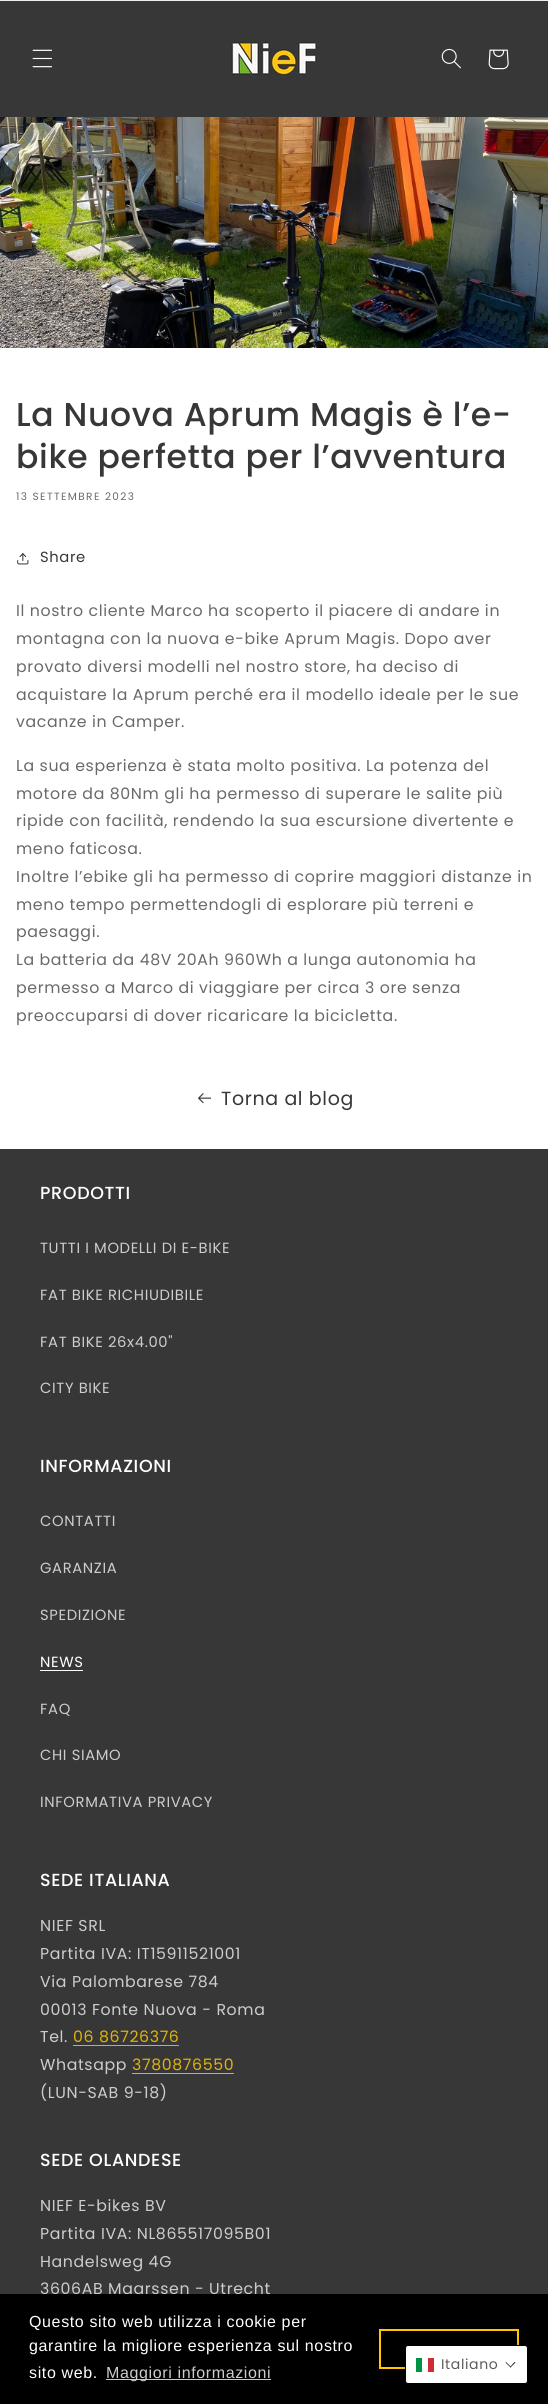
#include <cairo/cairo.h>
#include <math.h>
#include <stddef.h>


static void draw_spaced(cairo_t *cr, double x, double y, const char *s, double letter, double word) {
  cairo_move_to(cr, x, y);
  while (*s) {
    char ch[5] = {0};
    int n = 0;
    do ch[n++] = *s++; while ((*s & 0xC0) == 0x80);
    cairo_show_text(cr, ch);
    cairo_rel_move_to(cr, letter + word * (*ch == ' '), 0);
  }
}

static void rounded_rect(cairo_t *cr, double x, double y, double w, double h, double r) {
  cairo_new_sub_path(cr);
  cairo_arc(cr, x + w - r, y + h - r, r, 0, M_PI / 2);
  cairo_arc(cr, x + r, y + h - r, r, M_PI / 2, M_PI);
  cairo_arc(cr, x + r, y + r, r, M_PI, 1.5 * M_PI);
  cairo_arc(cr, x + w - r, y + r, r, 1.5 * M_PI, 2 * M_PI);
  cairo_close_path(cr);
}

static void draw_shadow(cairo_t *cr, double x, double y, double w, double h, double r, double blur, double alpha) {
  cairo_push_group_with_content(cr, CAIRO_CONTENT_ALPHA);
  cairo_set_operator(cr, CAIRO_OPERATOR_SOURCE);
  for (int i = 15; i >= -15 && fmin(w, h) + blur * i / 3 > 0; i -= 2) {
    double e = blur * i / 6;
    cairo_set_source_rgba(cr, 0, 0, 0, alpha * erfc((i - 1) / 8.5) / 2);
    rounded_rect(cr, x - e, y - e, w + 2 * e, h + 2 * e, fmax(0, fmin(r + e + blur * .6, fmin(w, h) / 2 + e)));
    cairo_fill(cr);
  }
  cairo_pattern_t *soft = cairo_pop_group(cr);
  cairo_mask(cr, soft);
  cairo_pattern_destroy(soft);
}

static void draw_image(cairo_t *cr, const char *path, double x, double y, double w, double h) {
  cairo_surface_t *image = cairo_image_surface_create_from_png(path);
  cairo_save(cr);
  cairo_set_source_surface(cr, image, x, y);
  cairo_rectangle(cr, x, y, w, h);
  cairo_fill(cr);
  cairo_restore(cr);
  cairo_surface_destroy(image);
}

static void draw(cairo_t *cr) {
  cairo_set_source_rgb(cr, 1, 1, 1);
  cairo_paint(cr);
  cairo_set_source_rgb(cr, 239 / 255.0, 239 / 255.0, 239 / 255.0);
  cairo_rectangle(cr, 0, 0, 548, 1);
  cairo_fill(cr);
  cairo_set_source_rgb(cr, 55 / 255.0, 55 / 255.0, 55 / 255.0);
  cairo_rectangle(cr, 0, 1, 548, 116);
  cairo_fill(cr);
  draw_image(cr, "images/1.png", 32, 49, 20, 19);
  draw_image(cr, "images/2.png", 231, 40, 88, 40);
  draw_image(cr, "images/3.png", 441, 48, 20, 21);
  draw_image(cr, "images/4.png", 488, 49, 21, 21);
  draw_image(cr, "images/5.png", 0, 117, 548, 231);
  draw_image(cr, "images/6.png", 17, 553, 12, 12);
  draw_image(cr, "images/7.png", 198, 1093, 13, 11);
  cairo_rectangle(cr, 0, 1149, 548, 1145);
  cairo_fill(cr);
  cairo_set_source_rgb(cr, 1, 1, 1);
  cairo_rectangle(cr, 40, 1670, 43, 1);
  cairo_fill(cr);
  cairo_set_source_rgb(cr, 225 / 255.0, 178 / 255.0, 9 / 255.0);
  cairo_rectangle(cr, 73, 2045, 106, 1);
  cairo_fill(cr);
  cairo_rectangle(cr, 132, 2073, 102, 1);
  cairo_fill(cr);
  cairo_select_font_face(cr, "Poppins Medium", CAIRO_FONT_SLANT_NORMAL, CAIRO_FONT_WEIGHT_NORMAL);
  cairo_set_font_size(cr, 33);
  cairo_set_source_rgb(cr, 55 / 255.0, 55 / 255.0, 55 / 255.0);
  draw_spaced(cr, 16, 426, "La Nuova Aprum Magis è l’e-", 0.65, 0);
  draw_spaced(cr, 16, 468, "bike perfetta per l’avventura", 0.65, 0);
  cairo_select_font_face(cr, "Poppins", CAIRO_FONT_SLANT_NORMAL, CAIRO_FONT_WEIGHT_NORMAL);
  cairo_set_font_size(cr, 10.5);
  cairo_set_source_rgb(cr, 105 / 255.0, 105 / 255.0, 105 / 255.0);
  draw_spaced(cr, 16, 500, "13 SETTEMBRE 2023", 1.4, 0);
  cairo_set_font_size(cr, 14.75);
  cairo_set_source_rgb(cr, 55 / 255.0, 55 / 255.0, 55 / 255.0);
  draw_spaced(cr, 40, 562, "Share", 0.63, 0);
  cairo_set_font_size(cr, 15.75);
  cairo_set_source_rgb(cr, 105 / 255.0, 105 / 255.0, 105 / 255.0);
  draw_spaced(cr, 16, 616, "Il nostro cliente Marco ha scoperto il piacere di andare in", 0.63, 0);
  draw_spaced(cr, 16, 644, "montagna con la nuova e-bike Aprum Magis. Dopo aver", 0.63, 0);
  draw_spaced(cr, 16, 672, "provato diversi modelli nel nostro store, ha deciso di", 0.63, 0);
  draw_spaced(cr, 16, 700, "acquistare la Aprum perché era il modello ideale per le sue", 0.63, 0);
  draw_spaced(cr, 16, 727, "vacanze in Camper.", 0.63, 0);
  draw_spaced(cr, 16, 771, "La sua esperienza è stata molto positiva. La potenza del", 0.63, 0);
  draw_spaced(cr, 16, 799, "motore da 80Nm gli ha permesso di superare le salite più", 0.63, 0);
  draw_spaced(cr, 16, 826, "ripide con facilità, rendendo la sua escursione divertente e", 0.63, 0);
  draw_spaced(cr, 16, 854, "meno faticosa.", 0.63, 0);
  draw_spaced(cr, 16, 882, "Inoltre l’ebike gli ha permesso di coprire maggiori distanze in", 0.63, 0);
  draw_spaced(cr, 16, 910, "meno tempo permettendogli di esplorare più terreni e", 0.63, 0);
  draw_spaced(cr, 16, 937, "paesaggi.", 0.63, 0);
  draw_spaced(cr, 16, 965, "La batteria da 48V 20Ah 960Wh a lunga autonomia ha", 0.63, 0);
  draw_spaced(cr, 16, 993, "permesso a Marco di viaggiare per circa 3 ore senza", 0.63, 0);
  draw_spaced(cr, 16, 1021, "preoccuparsi di dover ricaricare la bicicletta.", 0.63, 0);
  cairo_set_font_size(cr, 19);
  cairo_set_source_rgb(cr, 55 / 255.0, 55 / 255.0, 55 / 255.0);
  draw_spaced(cr, 221, 1105, "Torna al blog", 0.63, 0);
  cairo_select_font_face(cr, "Poppins Medium", CAIRO_FONT_SLANT_NORMAL, CAIRO_FONT_WEIGHT_NORMAL);
  cairo_set_font_size(cr, 17.5);
  cairo_set_source_rgb(cr, 1, 1, 1);
  draw_spaced(cr, 40, 1199, "PRODOTTI", 0.65, 0);
  cairo_select_font_face(cr, "Poppins", CAIRO_FONT_SLANT_NORMAL, CAIRO_FONT_WEIGHT_NORMAL);
  cairo_set_font_size(cr, 14.75);
  cairo_set_source_rgb(cr, 205 / 255.0, 205 / 255.0, 205 / 255.0);
  draw_spaced(cr, 40, 1253, "TUTTI I MODELLI DI E-BIKE", 0.63, 0);
  draw_spaced(cr, 40, 1300, "FAT BIKE RICHIUDIBILE", 0.63, 0);
  draw_spaced(cr, 40, 1347, "FAT BIKE 26x4.00\"", 0.63, 0);
  draw_spaced(cr, 40, 1393, "CITY BIKE", 0.63, 0);
  cairo_select_font_face(cr, "Poppins Medium", CAIRO_FONT_SLANT_NORMAL, CAIRO_FONT_WEIGHT_NORMAL);
  cairo_set_font_size(cr, 17.5);
  cairo_set_source_rgb(cr, 1, 1, 1);
  draw_spaced(cr, 40, 1472, "INFORMAZIONI", 0.65, 0);
  cairo_select_font_face(cr, "Poppins", CAIRO_FONT_SLANT_NORMAL, CAIRO_FONT_WEIGHT_NORMAL);
  cairo_set_font_size(cr, 14.75);
  cairo_set_source_rgb(cr, 205 / 255.0, 205 / 255.0, 205 / 255.0);
  draw_spaced(cr, 40, 1526, "CONTATTI", 0.63, 0);
  draw_spaced(cr, 40, 1573, "GARANZIA", 0.63, 0);
  draw_spaced(cr, 40, 1620, "SPEDIZIONE", 0.63, 0);
  cairo_set_source_rgb(cr, 1, 1, 1);
  draw_spaced(cr, 40, 1667, "NEWS", 0.63, 0);
  cairo_set_source_rgb(cr, 205 / 255.0, 205 / 255.0, 205 / 255.0);
  draw_spaced(cr, 40, 1714, "FAQ", 0.63, 0);
  draw_spaced(cr, 40, 1760, "CHI SIAMO", 0.63, 0);
  draw_spaced(cr, 40, 1807, "INFORMATIVA PRIVACY", 0.63, 0);
  cairo_select_font_face(cr, "Poppins Medium", CAIRO_FONT_SLANT_NORMAL, CAIRO_FONT_WEIGHT_NORMAL);
  cairo_set_font_size(cr, 17.5);
  cairo_set_source_rgb(cr, 1, 1, 1);
  draw_spaced(cr, 40, 1886, "SEDE ITALIANA", 0.65, 0);
  cairo_select_font_face(cr, "Poppins", CAIRO_FONT_SLANT_NORMAL, CAIRO_FONT_WEIGHT_NORMAL);
  cairo_set_font_size(cr, 15.75);
  cairo_set_source_rgb(cr, 205 / 255.0, 205 / 255.0, 205 / 255.0);
  draw_spaced(cr, 40, 1931, "NIEF SRL", 0.63, 0);
  draw_spaced(cr, 40, 1959, "Partita IVA: IT15911521001", 0.63, 0);
  draw_spaced(cr, 40, 1987, "Via Palombarese 784", 0.63, 0);
  draw_spaced(cr, 40, 2015, "00013 Fonte Nuova - Roma", 0.63, 0);
  draw_spaced(cr, 40, 2042, "Tel.", 0.63, 0);
  cairo_set_source_rgb(cr, 225 / 255.0, 178 / 255.0, 9 / 255.0);
  draw_spaced(cr, 73, 2042, "06 86726376", 0.63, 0);
  cairo_set_source_rgb(cr, 205 / 255.0, 205 / 255.0, 205 / 255.0);
  draw_spaced(cr, 40, 2070, "Whatsapp", 0.63, 0);
  cairo_set_source_rgb(cr, 225 / 255.0, 178 / 255.0, 9 / 255.0);
  draw_spaced(cr, 132, 2070, "3780876550", 0.63, 0);
  cairo_set_source_rgb(cr, 205 / 255.0, 205 / 255.0, 205 / 255.0);
  draw_spaced(cr, 40, 2098, "(LUN-SAB 9-18)", 0.63, 0);
  cairo_select_font_face(cr, "Poppins Medium", CAIRO_FONT_SLANT_NORMAL, CAIRO_FONT_WEIGHT_NORMAL);
  cairo_set_font_size(cr, 17.5);
  cairo_set_source_rgb(cr, 1, 1, 1);
  draw_spaced(cr, 40, 2166, "SEDE OLANDESE", 0.65, 0);
  cairo_select_font_face(cr, "Poppins", CAIRO_FONT_SLANT_NORMAL, CAIRO_FONT_WEIGHT_NORMAL);
  cairo_set_font_size(cr, 15.75);
  cairo_set_source_rgb(cr, 205 / 255.0, 205 / 255.0, 205 / 255.0);
  draw_spaced(cr, 40, 2211, "NIEF E-bikes BV", 0.63, 0);
  draw_spaced(cr, 40, 2239, "Partita IVA: NL865517095B01", 0.63, 0);
  draw_spaced(cr, 40, 2267, "Handelsweg 4G", 0.63, 0);
  draw_spaced(cr, 40, 2294, "3606AB Maarssen - Utrecht", 0.63, 0);
  cairo_set_source_rgb(cr, 0, 0, 0);
  cairo_rectangle(cr, 0, 2294, 548, 110);
  cairo_fill(cr);
  cairo_select_font_face(cr, "Liberation Sans", CAIRO_FONT_SLANT_NORMAL, CAIRO_FONT_WEIGHT_NORMAL);
  cairo_set_font_size(cr, 16);
  cairo_set_source_rgb(cr, 1, 1, 1);
  draw_spaced(cr, 29, 2327, "Questo sito web utilizza i cookie per", 0.63, 0);
  draw_spaced(cr, 29, 2351, "garantire la migliore esperienza sul nostro", 0.63, 0);
  draw_spaced(cr, 29, 2378, "sito web.", 0.63, 0);
  cairo_set_source_rgb(cr, 204 / 255.0, 204 / 255.0, 204 / 255.0);
  cairo_rectangle(cr, 106, 2379, 165, 1);
  cairo_fill(cr);
  cairo_set_source_rgb(cr, 205 / 255.0, 205 / 255.0, 205 / 255.0);
  draw_spaced(cr, 106, 2378, "Maggiori informazioni", 0.63, 0);
  cairo_rectangle(cr, 380, 2330, 138, 38);
  cairo_set_source_rgb(cr, 1, 200 / 255.0, 1 / 255.0);
  cairo_stroke(cr);
  cairo_set_source_rgb(cr, 0, 0, 0);
  draw_shadow(cr, 405, 2345, 123, 39, 3, 5, 0.15);
  cairo_set_source_rgb(cr, 1, 1, 1);
  rounded_rect(cr, 405.5, 2345.5, 122, 38, 2.5);
  cairo_fill_preserve(cr);
  cairo_set_source_rgb(cr, 0, 0, 0);
  cairo_set_line_width(cr, 1);
  cairo_stroke(cr);
  cairo_set_source_rgb(cr, 0, 146 / 255.0, 70 / 255.0);
  cairo_rectangle(cr, 416, 2358, 6, 14);
  cairo_fill(cr);
  cairo_set_source_rgb(cr, 206 / 255.0, 43 / 255.0, 55 / 255.0);
  cairo_rectangle(cr, 428, 2358, 6, 14);
  cairo_fill(cr);
  cairo_select_font_face(cr, "Poppins", CAIRO_FONT_SLANT_NORMAL, CAIRO_FONT_WEIGHT_NORMAL);
  cairo_set_font_size(cr, 14);
  cairo_set_source_rgb(cr, 92 / 255.0, 92 / 255.0, 92 / 255.0);
  draw_spaced(cr, 441, 2369, "Italiano", 0.63, 0);
  cairo_set_source_rgb(cr, 26 / 255.0, 26 / 255.0, 26 / 255.0);
  cairo_new_path(cr);
  cairo_move_to(cr, 514.5, 2362);
  cairo_line_to(cr, 515.5, 2362.5);
  cairo_line_to(cr, 510.5, 2367.5);
  cairo_line_to(cr, 510, 2367);
  cairo_close_path(cr);
  cairo_fill(cr);
  cairo_new_path(cr);
  cairo_move_to(cr, 506, 2362);
  cairo_line_to(cr, 511, 2367);
  cairo_line_to(cr, 510.5, 2367.5);
  cairo_line_to(cr, 505.5, 2362.5);
  cairo_close_path(cr);
  cairo_fill(cr);
}

int main(void) {
  cairo_surface_t *surface = cairo_image_surface_create(CAIRO_FORMAT_RGB24, 548, 2404);
  cairo_t *cr = cairo_create(surface);
  cairo_font_options_t *options = cairo_font_options_create();
  cairo_font_options_set_hint_metrics(options, CAIRO_HINT_METRICS_OFF);
  cairo_font_options_set_hint_style(options, CAIRO_HINT_STYLE_NONE);
  cairo_set_font_options(cr, options);
  cairo_set_miter_limit(cr, 4);
  draw(cr);
  cairo_surface_write_to_png(surface, "out.png");
  cairo_font_options_destroy(options);
  cairo_destroy(cr);
  cairo_surface_destroy(surface);
  return 0;
}
